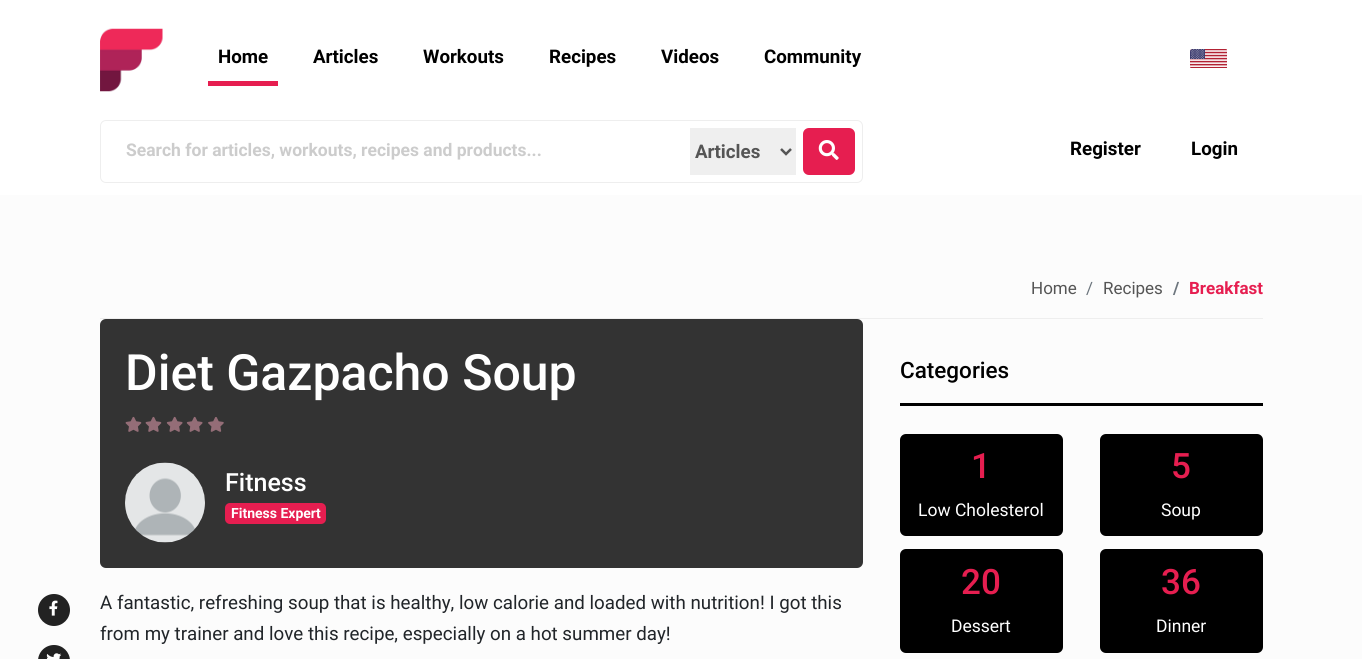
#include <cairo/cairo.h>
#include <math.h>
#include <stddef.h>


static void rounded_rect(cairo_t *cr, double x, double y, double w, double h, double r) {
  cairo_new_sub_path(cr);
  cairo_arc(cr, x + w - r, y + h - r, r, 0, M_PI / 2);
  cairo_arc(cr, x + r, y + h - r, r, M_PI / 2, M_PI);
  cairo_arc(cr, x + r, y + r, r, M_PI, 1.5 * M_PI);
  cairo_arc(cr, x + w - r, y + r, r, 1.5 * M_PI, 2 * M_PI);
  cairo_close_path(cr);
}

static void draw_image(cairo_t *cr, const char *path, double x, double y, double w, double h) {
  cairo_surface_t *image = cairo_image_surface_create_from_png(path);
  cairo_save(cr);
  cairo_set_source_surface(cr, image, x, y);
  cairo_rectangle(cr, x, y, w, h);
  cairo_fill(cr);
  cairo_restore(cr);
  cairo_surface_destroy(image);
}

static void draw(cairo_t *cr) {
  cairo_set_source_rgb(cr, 252 / 255.0, 252 / 255.0, 252 / 255.0);
  cairo_paint(cr);
  cairo_set_source_rgb(cr, 1, 1, 1);
  cairo_rectangle(cr, 0, 0, 1362, 195);
  cairo_fill(cr);
  draw_image(cr, "images/1.png", 100, 28, 63, 64);
  cairo_set_source_rgb(cr, 230 / 255.0, 30 / 255.0, 80 / 255.0);
  cairo_rectangle(cr, 208, 81, 70, 5);
  cairo_fill(cr);
  draw_image(cr, "images/2.png", 1190, 49, 37, 19);
  rounded_rect(cr, 100.5, 120.5, 762, 62, 5.5);
  cairo_set_source_rgb(cr, 238 / 255.0, 238 / 255.0, 238 / 255.0);
  cairo_set_line_width(cr, 1);
  cairo_stroke(cr);
  cairo_set_source_rgb(cr, 239 / 255.0, 239 / 255.0, 239 / 255.0);
  cairo_rectangle(cr, 690, 128, 106, 47);
  cairo_fill(cr);
  cairo_new_path(cr);
  cairo_move_to(cr, 781, 149);
  cairo_line_to(cr, 786, 154);
  cairo_line_to(cr, 791, 149);
  cairo_set_source_rgb(cr, 85 / 255.0, 85 / 255.0, 85 / 255.0);
  cairo_set_line_width(cr, 2.5);
  cairo_stroke(cr);
  cairo_set_source_rgb(cr, 230 / 255.0, 30 / 255.0, 80 / 255.0);
  rounded_rect(cr, 803, 128, 52, 47, 6);
  cairo_fill(cr);
  draw_image(cr, "images/3.png", 818, 140, 21, 20);
  cairo_set_source_rgb(cr, 238 / 255.0, 238 / 255.0, 238 / 255.0);
  cairo_rectangle(cr, 100, 318, 1163, 1);
  cairo_fill(cr);
  cairo_set_source_rgb(cr, 51 / 255.0, 51 / 255.0, 51 / 255.0);
  rounded_rect(cr, 100, 319, 763, 249, 6);
  cairo_fill(cr);
  draw_image(cr, "images/4.png", 125, 416, 17, 16);
  draw_image(cr, "images/4.png", 145, 416, 17, 16);
  draw_image(cr, "images/5.png", 166, 416, 17, 16);
  draw_image(cr, "images/5.png", 186, 416, 17, 16);
  draw_image(cr, "images/6.png", 208, 417, 16, 15);
  draw_image(cr, "images/7.png", 125, 462, 80, 81);
  cairo_set_source_rgb(cr, 230 / 255.0, 30 / 255.0, 80 / 255.0);
  rounded_rect(cr, 225, 503, 101, 21, 5);
  cairo_fill(cr);
  cairo_set_source_rgb(cr, 34 / 255.0, 34 / 255.0, 34 / 255.0);
  cairo_arc(cr, 54, 610, 16, 0, 2 * M_PI);
  cairo_fill(cr);
  draw_image(cr, "images/8.png", 49, 600, 9, 16);
  rounded_rect(cr, 38, 645, 32, 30, 16);
  cairo_fill(cr);
  draw_image(cr, "images/9.png", 46, 653, 16, 6);
  cairo_set_source_rgb(cr, 0, 0, 0);
  cairo_rectangle(cr, 900, 403, 363, 3);
  cairo_fill(cr);
  rounded_rect(cr, 900, 434, 163, 102, 6);
  cairo_fill(cr);
  rounded_rect(cr, 1100, 434, 163, 102, 6);
  cairo_fill(cr);
  rounded_rect(cr, 900, 549, 163, 104, 6);
  cairo_fill(cr);
  rounded_rect(cr, 1100, 549, 163, 104, 6);
  cairo_fill(cr);
  cairo_select_font_face(cr, "Roboto", CAIRO_FONT_SLANT_NORMAL, CAIRO_FONT_WEIGHT_BOLD);
  cairo_set_font_size(cr, 18.75);
  cairo_move_to(cr, 218, 63);
  cairo_show_text(cr, "Home");
  cairo_move_to(cr, 313, 63);
  cairo_show_text(cr, "Articles");
  cairo_move_to(cr, 423, 63);
  cairo_show_text(cr, "Workouts");
  cairo_move_to(cr, 549, 63);
  cairo_show_text(cr, "Recipes");
  cairo_move_to(cr, 661, 63);
  cairo_show_text(cr, "Videos");
  cairo_move_to(cr, 764, 63);
  cairo_show_text(cr, "Community");
  cairo_set_font_size(cr, 17.5);
  cairo_set_source_rgb(cr, 204 / 255.0, 204 / 255.0, 204 / 255.0);
  cairo_move_to(cr, 126, 156);
  cairo_show_text(cr, "Search for articles, workouts, recipes and products...");
  cairo_set_font_size(cr, 18.75);
  cairo_set_source_rgb(cr, 85 / 255.0, 85 / 255.0, 85 / 255.0);
  cairo_move_to(cr, 695, 158);
  cairo_show_text(cr, "Articles");
  cairo_set_source_rgb(cr, 0, 0, 0);
  cairo_move_to(cr, 1070, 155);
  cairo_show_text(cr, "Register");
  cairo_move_to(cr, 1191, 155);
  cairo_show_text(cr, "Login");
  cairo_select_font_face(cr, "Roboto", CAIRO_FONT_SLANT_NORMAL, CAIRO_FONT_WEIGHT_NORMAL);
  cairo_set_font_size(cr, 17);
  cairo_set_source_rgb(cr, 85 / 255.0, 85 / 255.0, 85 / 255.0);
  cairo_move_to(cr, 1031, 294);
  cairo_show_text(cr, "Home");
  cairo_set_source_rgb(cr, 108 / 255.0, 117 / 255.0, 125 / 255.0);
  cairo_move_to(cr, 1086, 294);
  cairo_show_text(cr, "/");
  cairo_set_source_rgb(cr, 85 / 255.0, 85 / 255.0, 85 / 255.0);
  cairo_move_to(cr, 1103, 294);
  cairo_show_text(cr, "Recipes");
  cairo_select_font_face(cr, "Roboto", CAIRO_FONT_SLANT_NORMAL, CAIRO_FONT_WEIGHT_BOLD);
  cairo_set_source_rgb(cr, 108 / 255.0, 117 / 255.0, 125 / 255.0);
  cairo_move_to(cr, 1173, 294);
  cairo_show_text(cr, "/");
  cairo_set_source_rgb(cr, 230 / 255.0, 30 / 255.0, 80 / 255.0);
  cairo_move_to(cr, 1189, 294);
  cairo_show_text(cr, "Breakfast");
  cairo_select_font_face(cr, "Roboto Medium", CAIRO_FONT_SLANT_NORMAL, CAIRO_FONT_WEIGHT_NORMAL);
  cairo_set_font_size(cr, 50);
  cairo_set_source_rgb(cr, 1, 1, 1);
  cairo_move_to(cr, 125, 390);
  cairo_show_text(cr, "Diet Gazpacho Soup");
  cairo_set_font_size(cr, 25);
  cairo_move_to(cr, 225, 491);
  cairo_show_text(cr, "Fitness");
  cairo_select_font_face(cr, "Roboto", CAIRO_FONT_SLANT_NORMAL, CAIRO_FONT_WEIGHT_BOLD);
  cairo_set_font_size(cr, 14);
  cairo_move_to(cr, 231, 518);
  cairo_show_text(cr, "Fitness Expert");
  cairo_select_font_face(cr, "Roboto", CAIRO_FONT_SLANT_NORMAL, CAIRO_FONT_WEIGHT_NORMAL);
  cairo_set_font_size(cr, 18.75);
  cairo_set_source_rgb(cr, 33 / 255.0, 37 / 255.0, 41 / 255.0);
  cairo_move_to(cr, 100, 609);
  cairo_show_text(cr, "A fantastic, refreshing soup that is healthy, low calorie and loaded with nutrition! I got this");
  cairo_move_to(cr, 100, 640);
  cairo_show_text(cr, "from my trainer and love this recipe, especially on a hot summer day!");
  cairo_select_font_face(cr, "Roboto Medium", CAIRO_FONT_SLANT_NORMAL, CAIRO_FONT_WEIGHT_NORMAL);
  cairo_set_font_size(cr, 22.5);
  cairo_set_source_rgb(cr, 0, 0, 0);
  cairo_move_to(cr, 900, 378);
  cairo_show_text(cr, "Categories");
  cairo_set_font_size(cr, 35);
  cairo_set_source_rgb(cr, 230 / 255.0, 30 / 255.0, 80 / 255.0);
  cairo_move_to(cr, 971, 478);
  cairo_show_text(cr, "1");
  cairo_select_font_face(cr, "Roboto", CAIRO_FONT_SLANT_NORMAL, CAIRO_FONT_WEIGHT_NORMAL);
  cairo_set_font_size(cr, 17.5);
  cairo_set_source_rgb(cr, 1, 1, 1);
  cairo_move_to(cr, 918, 516);
  cairo_show_text(cr, "Low Cholesterol");
  cairo_select_font_face(cr, "Roboto Medium", CAIRO_FONT_SLANT_NORMAL, CAIRO_FONT_WEIGHT_NORMAL);
  cairo_set_font_size(cr, 35);
  cairo_set_source_rgb(cr, 230 / 255.0, 30 / 255.0, 80 / 255.0);
  cairo_move_to(cr, 1171, 478);
  cairo_show_text(cr, "5");
  cairo_select_font_face(cr, "Roboto", CAIRO_FONT_SLANT_NORMAL, CAIRO_FONT_WEIGHT_NORMAL);
  cairo_set_font_size(cr, 17.5);
  cairo_set_source_rgb(cr, 1, 1, 1);
  cairo_move_to(cr, 1161, 516);
  cairo_show_text(cr, "Soup");
  cairo_select_font_face(cr, "Roboto Medium", CAIRO_FONT_SLANT_NORMAL, CAIRO_FONT_WEIGHT_NORMAL);
  cairo_set_font_size(cr, 35);
  cairo_set_source_rgb(cr, 230 / 255.0, 30 / 255.0, 80 / 255.0);
  cairo_move_to(cr, 961, 594);
  cairo_show_text(cr, "20");
  cairo_select_font_face(cr, "Roboto", CAIRO_FONT_SLANT_NORMAL, CAIRO_FONT_WEIGHT_NORMAL);
  cairo_set_font_size(cr, 17.5);
  cairo_set_source_rgb(cr, 1, 1, 1);
  cairo_move_to(cr, 951, 632);
  cairo_show_text(cr, "Dessert");
  cairo_select_font_face(cr, "Roboto Medium", CAIRO_FONT_SLANT_NORMAL, CAIRO_FONT_WEIGHT_NORMAL);
  cairo_set_font_size(cr, 35);
  cairo_set_source_rgb(cr, 230 / 255.0, 30 / 255.0, 80 / 255.0);
  cairo_move_to(cr, 1161, 594);
  cairo_show_text(cr, "36");
  cairo_select_font_face(cr, "Roboto", CAIRO_FONT_SLANT_NORMAL, CAIRO_FONT_WEIGHT_NORMAL);
  cairo_set_font_size(cr, 17.5);
  cairo_set_source_rgb(cr, 1, 1, 1);
  cairo_move_to(cr, 1156, 632);
  cairo_show_text(cr, "Dinner");
}

int main(void) {
  cairo_surface_t *surface = cairo_image_surface_create(CAIRO_FORMAT_RGB24, 1362, 659);
  cairo_t *cr = cairo_create(surface);
  cairo_font_options_t *options = cairo_font_options_create();
  cairo_font_options_set_hint_metrics(options, CAIRO_HINT_METRICS_OFF);
  cairo_font_options_set_hint_style(options, CAIRO_HINT_STYLE_NONE);
  cairo_set_font_options(cr, options);
  cairo_set_miter_limit(cr, 4);
  draw(cr);
  cairo_surface_write_to_png(surface, "out.png");
  cairo_font_options_destroy(options);
  cairo_destroy(cr);
  cairo_surface_destroy(surface);
  return 0;
}
